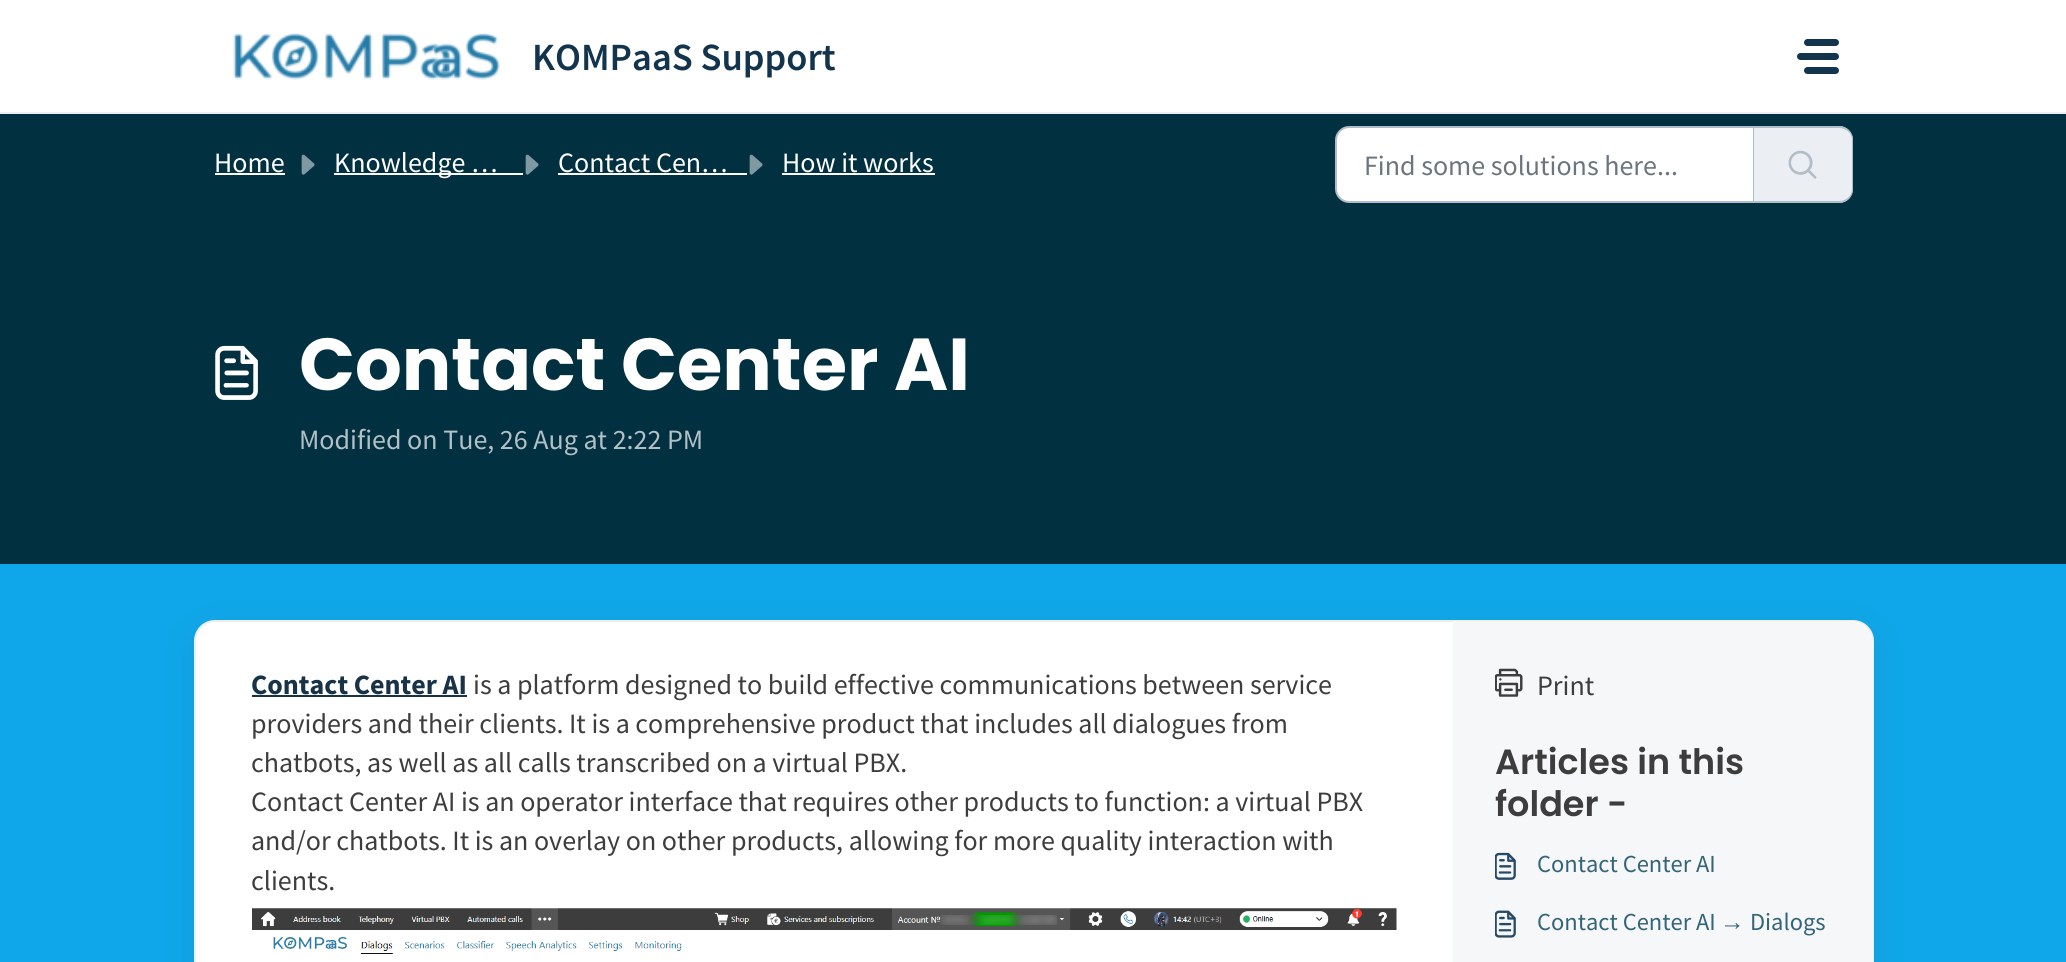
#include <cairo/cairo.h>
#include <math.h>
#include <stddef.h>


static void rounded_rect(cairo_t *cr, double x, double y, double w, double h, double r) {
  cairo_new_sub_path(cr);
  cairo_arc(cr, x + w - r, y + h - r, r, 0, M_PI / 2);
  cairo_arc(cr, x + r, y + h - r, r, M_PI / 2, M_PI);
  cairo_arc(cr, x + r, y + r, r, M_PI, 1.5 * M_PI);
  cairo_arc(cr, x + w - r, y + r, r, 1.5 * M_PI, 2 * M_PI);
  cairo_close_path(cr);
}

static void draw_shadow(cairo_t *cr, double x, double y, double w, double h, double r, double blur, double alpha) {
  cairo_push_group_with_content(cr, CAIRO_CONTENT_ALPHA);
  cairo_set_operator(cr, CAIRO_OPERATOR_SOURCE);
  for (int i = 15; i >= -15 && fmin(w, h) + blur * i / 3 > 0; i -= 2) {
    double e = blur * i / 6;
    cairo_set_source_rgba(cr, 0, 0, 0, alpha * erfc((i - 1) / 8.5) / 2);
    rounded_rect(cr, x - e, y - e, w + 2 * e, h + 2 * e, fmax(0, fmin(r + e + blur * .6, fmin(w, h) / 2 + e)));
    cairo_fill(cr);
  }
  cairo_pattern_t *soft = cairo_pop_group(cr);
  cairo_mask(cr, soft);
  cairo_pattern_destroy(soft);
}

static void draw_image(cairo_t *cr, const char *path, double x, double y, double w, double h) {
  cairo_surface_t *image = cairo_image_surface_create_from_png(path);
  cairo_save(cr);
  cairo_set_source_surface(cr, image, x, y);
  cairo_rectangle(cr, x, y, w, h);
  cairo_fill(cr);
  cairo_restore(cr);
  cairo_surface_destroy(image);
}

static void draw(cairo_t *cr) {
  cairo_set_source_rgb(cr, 15 / 255.0, 167 / 255.0, 233 / 255.0);
  cairo_paint(cr);
  cairo_set_source_rgb(cr, 1, 1, 1);
  cairo_rectangle(cr, 0, 0, 2066, 112);
  cairo_fill(cr);
  cairo_set_source_rgb(cr, 235 / 255.0, 239 / 255.0, 243 / 255.0);
  cairo_rectangle(cr, 0, 112, 2066, 2);
  cairo_fill(cr);
  draw_image(cr, "images/1.png", 233, 33, 267, 47);
  cairo_set_source_rgb(cr, 18 / 255.0, 52 / 255.0, 77 / 255.0);
  rounded_rect(cr, 1804, 39, 35, 7, 3.5);
  cairo_fill(cr);
  rounded_rect(cr, 1797, 53, 42, 7, 3.5);
  cairo_fill(cr);
  rounded_rect(cr, 1804, 67, 35, 7, 3.5);
  cairo_fill(cr);
  cairo_set_source_rgb(cr, 1 / 255.0, 48 / 255.0, 64 / 255.0);
  cairo_rectangle(cr, 0, 114, 2066, 450);
  cairo_fill(cr);
  cairo_set_source_rgb(cr, 1, 1, 1);
  cairo_rectangle(cr, 215, 173, 70, 2);
  cairo_fill(cr);
  draw_image(cr, "images/2.png", 301, 154, 14, 21);
  cairo_rectangle(cr, 334, 173, 189, 2);
  cairo_fill(cr);
  draw_image(cr, "images/2.png", 525, 154, 14, 21);
  cairo_rectangle(cr, 558, 173, 189, 2);
  cairo_fill(cr);
  draw_image(cr, "images/2.png", 749, 154, 14, 21);
  cairo_rectangle(cr, 782, 173, 153, 2);
  cairo_fill(cr);
  cairo_new_path(cr);
  cairo_move_to(cr, 1349, 127);
  cairo_line_to(cr, 1754, 127);
  cairo_line_to(cr, 1754, 202);
  cairo_line_to(cr, 1349, 202);
  cairo_curve_to(cr, 1342, 202, 1336, 196, 1336, 189);
  cairo_line_to(cr, 1336, 140);
  cairo_curve_to(cr, 1336, 133, 1342, 127, 1349, 127);
  cairo_close_path(cr);
  cairo_fill_preserve(cr);
  cairo_set_source_rgb(cr, 177 / 255.0, 189 / 255.0, 200 / 255.0);
  cairo_stroke(cr);
  cairo_set_source_rgb(cr, 235 / 255.0, 239 / 255.0, 243 / 255.0);
  cairo_new_path(cr);
  cairo_move_to(cr, 1754, 126);
  cairo_line_to(cr, 1839, 126);
  cairo_curve_to(cr, 1846.5, 126, 1853, 132.5, 1853, 140);
  cairo_line_to(cr, 1853, 189);
  cairo_curve_to(cr, 1853, 196.5, 1846.5, 203, 1839, 203);
  cairo_line_to(cr, 1754, 203);
  cairo_close_path(cr);
  cairo_fill(cr);
  cairo_set_source_rgb(cr, 177 / 255.0, 189 / 255.0, 200 / 255.0);
  cairo_set_fill_rule(cr, CAIRO_FILL_RULE_EVEN_ODD);
  cairo_new_path(cr);
  cairo_move_to(cr, 1754, 126);
  cairo_line_to(cr, 1839, 126);
  cairo_curve_to(cr, 1847, 126, 1853, 132, 1853, 140);
  cairo_line_to(cr, 1853, 189);
  cairo_curve_to(cr, 1853, 197, 1847, 203, 1839, 203);
  cairo_line_to(cr, 1754, 203);
  cairo_close_path(cr);
  cairo_move_to(cr, 1754, 128);
  cairo_line_to(cr, 1839, 128);
  cairo_curve_to(cr, 1846, 128, 1852, 133, 1852, 140);
  cairo_line_to(cr, 1852, 189);
  cairo_curve_to(cr, 1852, 196, 1846, 201, 1839, 201);
  cairo_line_to(cr, 1754, 201);
  cairo_close_path(cr);
  cairo_fill(cr);
  draw_image(cr, "images/3.png", 1788, 150, 29, 29);
  draw_image(cr, "images/4.png", 215, 345, 43, 55);
  cairo_set_source_rgb(cr, 39 / 255.0, 49 / 255.0, 58 / 255.0);
  draw_shadow(cr, 194, 630, 1680, 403, 21, 16.5, 0.1);
  cairo_set_source_rgb(cr, 1, 1, 1);
  rounded_rect(cr, 195, 621, 1678, 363, 20);
  cairo_fill_preserve(cr);
  cairo_set_source_rgb(cr, 235 / 255.0, 239 / 255.0, 243 / 255.0);
  cairo_stroke(cr);
  cairo_set_source_rgb(cr, 24 / 255.0, 50 / 255.0, 71 / 255.0);
  cairo_rectangle(cr, 252, 695, 215, 2);
  cairo_fill(cr);
  draw_image(cr, "images/5.png", 252, 908, 1145, 46);
  cairo_set_source_rgb(cr, 245 / 255.0, 247 / 255.0, 249 / 255.0);
  cairo_new_path(cr);
  cairo_move_to(cr, 1453, 621);
  cairo_line_to(cr, 1852, 621);
  cairo_curve_to(cr, 1863.5, 621, 1873, 630.5, 1873, 642);
  cairo_line_to(cr, 1873, 962);
  cairo_curve_to(cr, 1873, 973.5, 1863.5, 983, 1852, 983);
  cairo_line_to(cr, 1453, 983);
  cairo_close_path(cr);
  cairo_fill(cr);
  draw_image(cr, "images/6.png", 1495, 668, 28, 29);
  draw_image(cr, "images/7.png", 1495, 852, 21, 28);
  draw_image(cr, "images/8.png", 1495, 910, 21, 28);
  cairo_select_font_face(cr, "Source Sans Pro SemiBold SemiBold", CAIRO_FONT_SLANT_NORMAL, CAIRO_FONT_WEIGHT_NORMAL);
  cairo_set_font_size(cr, 38.5);
  cairo_set_source_rgb(cr, 18 / 255.0, 52 / 255.0, 77 / 255.0);
  cairo_move_to(cr, 532, 70);
  cairo_show_text(cr, "KOMPaaS Support");
  cairo_select_font_face(cr, "Source Sans Pro", CAIRO_FONT_SLANT_NORMAL, CAIRO_FONT_WEIGHT_NORMAL);
  cairo_set_font_size(cr, 28);
  cairo_set_source_rgb(cr, 1, 1, 1);
  cairo_move_to(cr, 214, 172);
  cairo_show_text(cr, "Home");
  cairo_move_to(cr, 334, 172);
  cairo_show_text(cr, "Knowledge …");
  cairo_move_to(cr, 558, 172);
  cairo_show_text(cr, "Contact Cen…");
  cairo_move_to(cr, 782, 172);
  cairo_show_text(cr, "How it works");
  cairo_set_source_rgb(cr, 108 / 255.0, 117 / 255.0, 125 / 255.0);
  cairo_move_to(cr, 1364, 175);
  cairo_show_text(cr, "Find some solutions here...");
  cairo_select_font_face(cr, "Poppins", CAIRO_FONT_SLANT_NORMAL, CAIRO_FONT_WEIGHT_BOLD);
  cairo_set_font_size(cr, 73.5);
  cairo_set_source_rgb(cr, 1, 1, 1);
  cairo_move_to(cr, 299, 390);
  cairo_show_text(cr, "Contact Center AI");
  cairo_select_font_face(cr, "Source Sans Pro", CAIRO_FONT_SLANT_NORMAL, CAIRO_FONT_WEIGHT_NORMAL);
  cairo_set_font_size(cr, 28);
  cairo_set_source_rgb(cr, 179 / 255.0, 193 / 255.0, 198 / 255.0);
  cairo_move_to(cr, 299, 449);
  cairo_show_text(cr, "Modified on Tue, 26 Aug at 2:22 PM");
  cairo_select_font_face(cr, "Source Sans Pro", CAIRO_FONT_SLANT_NORMAL, CAIRO_FONT_WEIGHT_BOLD);
  cairo_set_source_rgb(cr, 24 / 255.0, 50 / 255.0, 71 / 255.0);
  cairo_move_to(cr, 251, 694);
  cairo_show_text(cr, "Contact Center AI");
  cairo_select_font_face(cr, "Source Sans Pro", CAIRO_FONT_SLANT_NORMAL, CAIRO_FONT_WEIGHT_NORMAL);
  cairo_set_source_rgb(cr, 61 / 255.0, 61 / 255.0, 61 / 255.0);
  cairo_move_to(cr, 473, 694);
  cairo_show_text(cr, "is a platform designed to build effective communications between service");
  cairo_move_to(cr, 251, 733);
  cairo_show_text(cr, "providers and their clients. It is a comprehensive product that includes all dialogues from");
  cairo_move_to(cr, 251, 772);
  cairo_show_text(cr, "chatbots, as well as all calls transcribed on a virtual PBX.");
  cairo_move_to(cr, 251, 811);
  cairo_show_text(cr, "Contact Center AI is an operator interface that requires other products to function: a virtual PBX");
  cairo_move_to(cr, 251, 850);
  cairo_show_text(cr, "and/or chatbots. It is an overlay on other products, allowing for more quality interaction with");
  cairo_move_to(cr, 251, 890);
  cairo_show_text(cr, "clients.");
  cairo_move_to(cr, 1537, 695);
  cairo_show_text(cr, "Print");
  cairo_select_font_face(cr, "Poppins SemiBold", CAIRO_FONT_SLANT_NORMAL, CAIRO_FONT_WEIGHT_NORMAL);
  cairo_set_font_size(cr, 35);
  cairo_move_to(cr, 1495, 774);
  cairo_show_text(cr, "Articles in this");
  cairo_move_to(cr, 1495, 816);
  cairo_show_text(cr, "folder -");
  cairo_select_font_face(cr, "Source Sans Pro", CAIRO_FONT_SLANT_NORMAL, CAIRO_FONT_WEIGHT_NORMAL);
  cairo_set_font_size(cr, 24.5);
  cairo_set_source_rgb(cr, 52 / 255.0, 100 / 255.0, 119 / 255.0);
  cairo_move_to(cr, 1537, 872);
  cairo_show_text(cr, "Contact Center AI");
  cairo_move_to(cr, 1537, 930);
  cairo_show_text(cr, "Contact Center AI");
  cairo_select_font_face(cr, "Liberation Serif", CAIRO_FONT_SLANT_NORMAL, CAIRO_FONT_WEIGHT_NORMAL);
  cairo_move_to(cr, 1720, 930);
  cairo_show_text(cr, "→");
  cairo_select_font_face(cr, "Source Sans Pro", CAIRO_FONT_SLANT_NORMAL, CAIRO_FONT_WEIGHT_NORMAL);
  cairo_move_to(cr, 1750, 930);
  cairo_show_text(cr, "Dialogs");
}

int main(void) {
  cairo_surface_t *surface = cairo_image_surface_create(CAIRO_FORMAT_RGB24, 2066, 962);
  cairo_t *cr = cairo_create(surface);
  cairo_font_options_t *options = cairo_font_options_create();
  cairo_font_options_set_hint_metrics(options, CAIRO_HINT_METRICS_OFF);
  cairo_font_options_set_hint_style(options, CAIRO_HINT_STYLE_NONE);
  cairo_set_font_options(cr, options);
  cairo_set_miter_limit(cr, 4);
  draw(cr);
  cairo_surface_write_to_png(surface, "out.png");
  cairo_font_options_destroy(options);
  cairo_destroy(cr);
  cairo_surface_destroy(surface);
  return 0;
}
